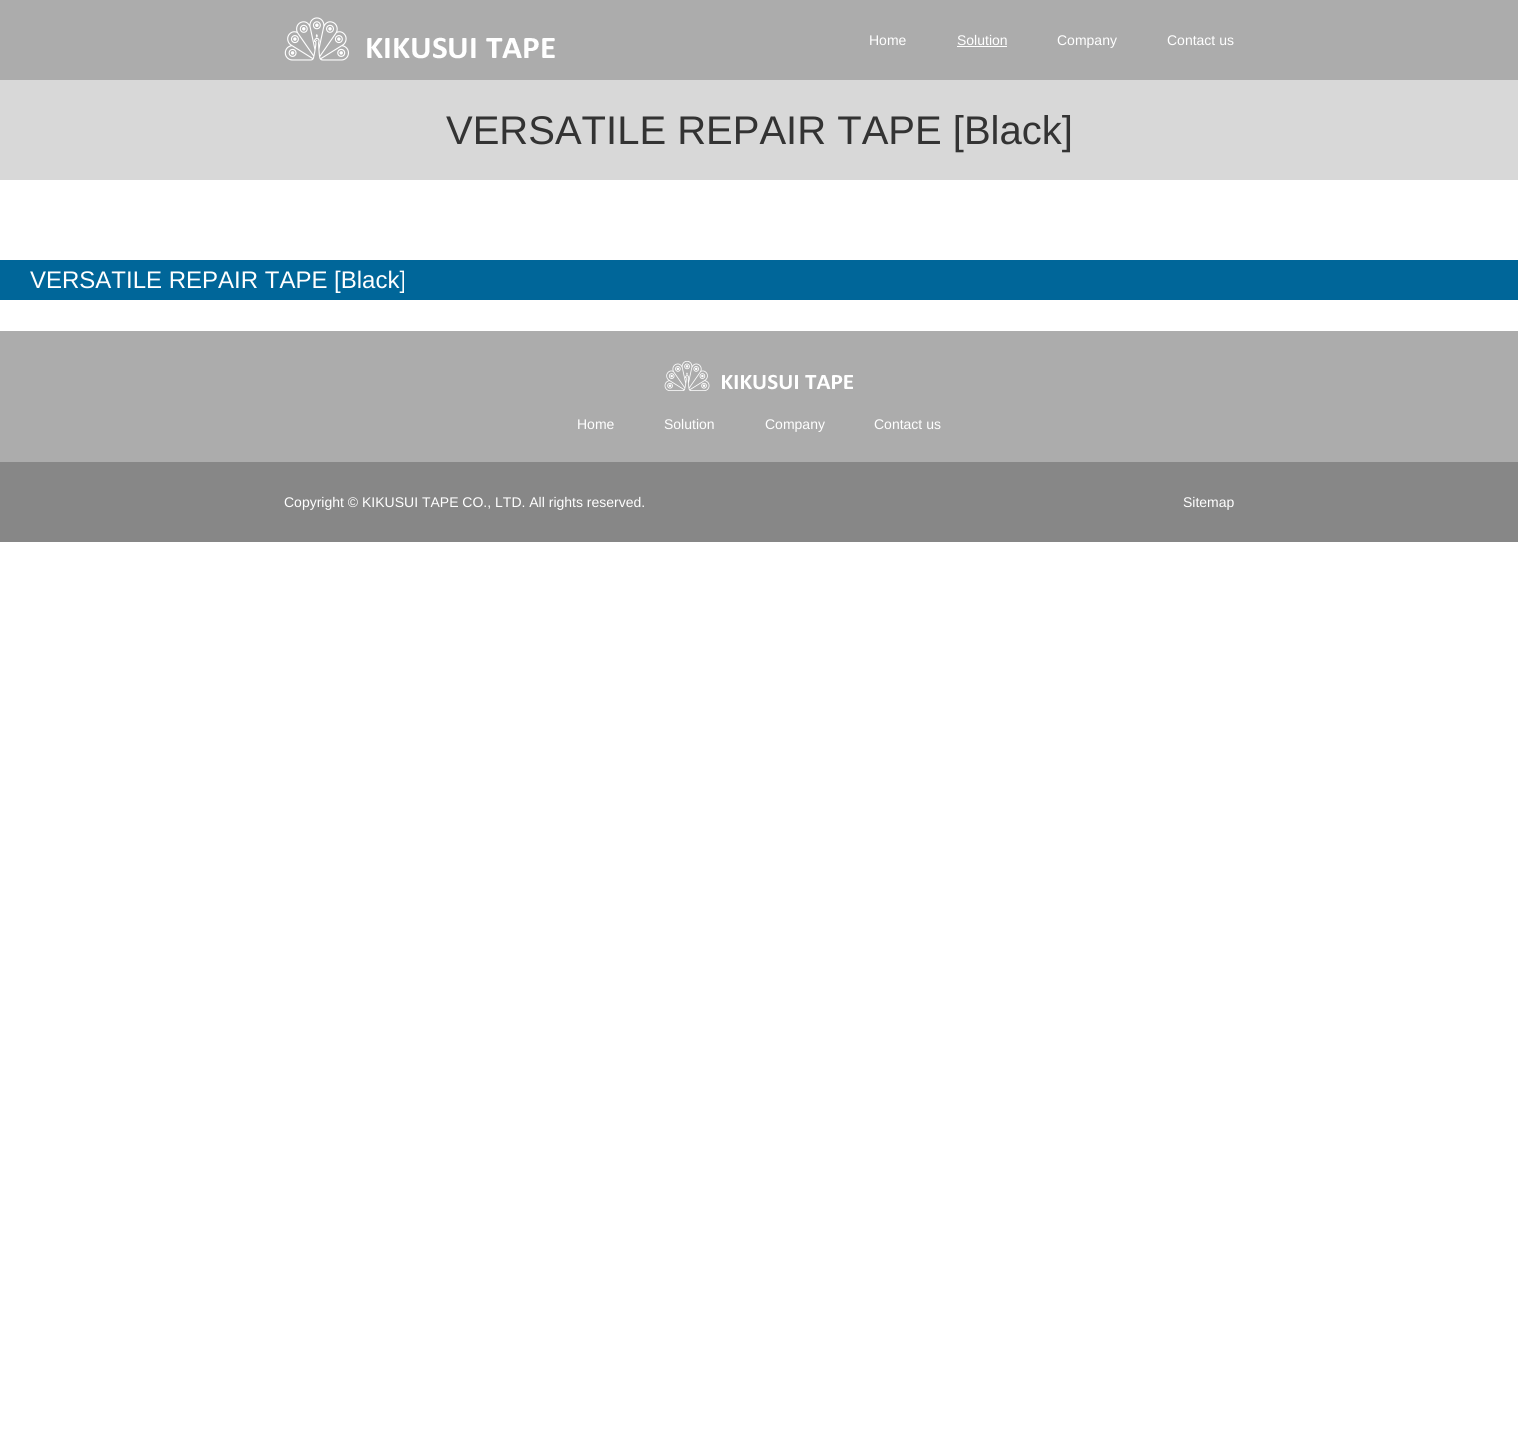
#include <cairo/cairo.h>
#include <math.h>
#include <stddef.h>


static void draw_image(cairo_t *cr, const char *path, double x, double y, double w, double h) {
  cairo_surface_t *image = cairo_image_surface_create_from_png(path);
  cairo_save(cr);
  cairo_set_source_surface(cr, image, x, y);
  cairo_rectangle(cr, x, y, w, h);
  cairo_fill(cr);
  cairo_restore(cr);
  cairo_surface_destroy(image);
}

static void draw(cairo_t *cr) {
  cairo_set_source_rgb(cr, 1, 1, 1);
  cairo_paint(cr);
  cairo_set_source_rgb(cr, 172 / 255.0, 172 / 255.0, 172 / 255.0);
  cairo_rectangle(cr, 0, 0, 1518, 80);
  cairo_fill(cr);
  draw_image(cr, "images/1.png", 284, 17, 271, 44);
  cairo_set_source_rgb(cr, 1, 1, 1);
  cairo_rectangle(cr, 957, 46, 50, 1);
  cairo_fill(cr);
  cairo_set_source_rgb(cr, 216 / 255.0, 216 / 255.0, 216 / 255.0);
  cairo_rectangle(cr, 0, 80, 1518, 100);
  cairo_fill(cr);
  cairo_set_source_rgb(cr, 0, 102 / 255.0, 153 / 255.0);
  cairo_rectangle(cr, 0, 260, 1518, 40);
  cairo_fill(cr);
  cairo_set_source_rgb(cr, 172 / 255.0, 172 / 255.0, 172 / 255.0);
  cairo_rectangle(cr, 0, 331, 1518, 131);
  cairo_fill(cr);
  draw_image(cr, "images/2.png", 664, 361, 189, 30);
  cairo_set_source_rgb(cr, 135 / 255.0, 135 / 255.0, 135 / 255.0);
  cairo_rectangle(cr, 0, 462, 1518, 80);
  cairo_fill(cr);
  cairo_select_font_face(cr, "Liberation Sans", CAIRO_FONT_SLANT_NORMAL, CAIRO_FONT_WEIGHT_NORMAL);
  cairo_set_font_size(cr, 14);
  cairo_set_source_rgb(cr, 1, 1, 1);
  cairo_move_to(cr, 869, 45);
  cairo_show_text(cr, "Home");
  cairo_move_to(cr, 957, 45);
  cairo_show_text(cr, "Solution");
  cairo_move_to(cr, 1057, 45);
  cairo_show_text(cr, "Company");
  cairo_move_to(cr, 1167, 45);
  cairo_show_text(cr, "Contact us");
  cairo_set_font_size(cr, 40);
  cairo_set_source_rgb(cr, 51 / 255.0, 51 / 255.0, 51 / 255.0);
  cairo_move_to(cr, 446, 144);
  cairo_show_text(cr, "VERSATILE REPAIR TAPE [Black]");
  cairo_set_font_size(cr, 24);
  cairo_set_source_rgb(cr, 1, 1, 1);
  cairo_move_to(cr, 30, 288);
  cairo_show_text(cr, "VERSATILE REPAIR TAPE [Black]");
  cairo_set_font_size(cr, 14);
  cairo_move_to(cr, 577, 429);
  cairo_show_text(cr, "Home");
  cairo_move_to(cr, 664, 429);
  cairo_show_text(cr, "Solution");
  cairo_move_to(cr, 765, 429);
  cairo_show_text(cr, "Company");
  cairo_move_to(cr, 874, 429);
  cairo_show_text(cr, "Contact us");
  cairo_move_to(cr, 284, 507);
  cairo_show_text(cr, "Copyright © KIKUSUI TAPE CO., LTD. All rights reserved.");
  cairo_move_to(cr, 1183, 507);
  cairo_show_text(cr, "Sitemap");
}

int main(void) {
  cairo_surface_t *surface = cairo_image_surface_create(CAIRO_FORMAT_RGB24, 1518, 1443);
  cairo_t *cr = cairo_create(surface);
  cairo_font_options_t *options = cairo_font_options_create();
  cairo_font_options_set_hint_metrics(options, CAIRO_HINT_METRICS_OFF);
  cairo_font_options_set_hint_style(options, CAIRO_HINT_STYLE_NONE);
  cairo_set_font_options(cr, options);
  cairo_set_miter_limit(cr, 4);
  draw(cr);
  cairo_surface_write_to_png(surface, "out.png");
  cairo_font_options_destroy(options);
  cairo_destroy(cr);
  cairo_surface_destroy(surface);
  return 0;
}
